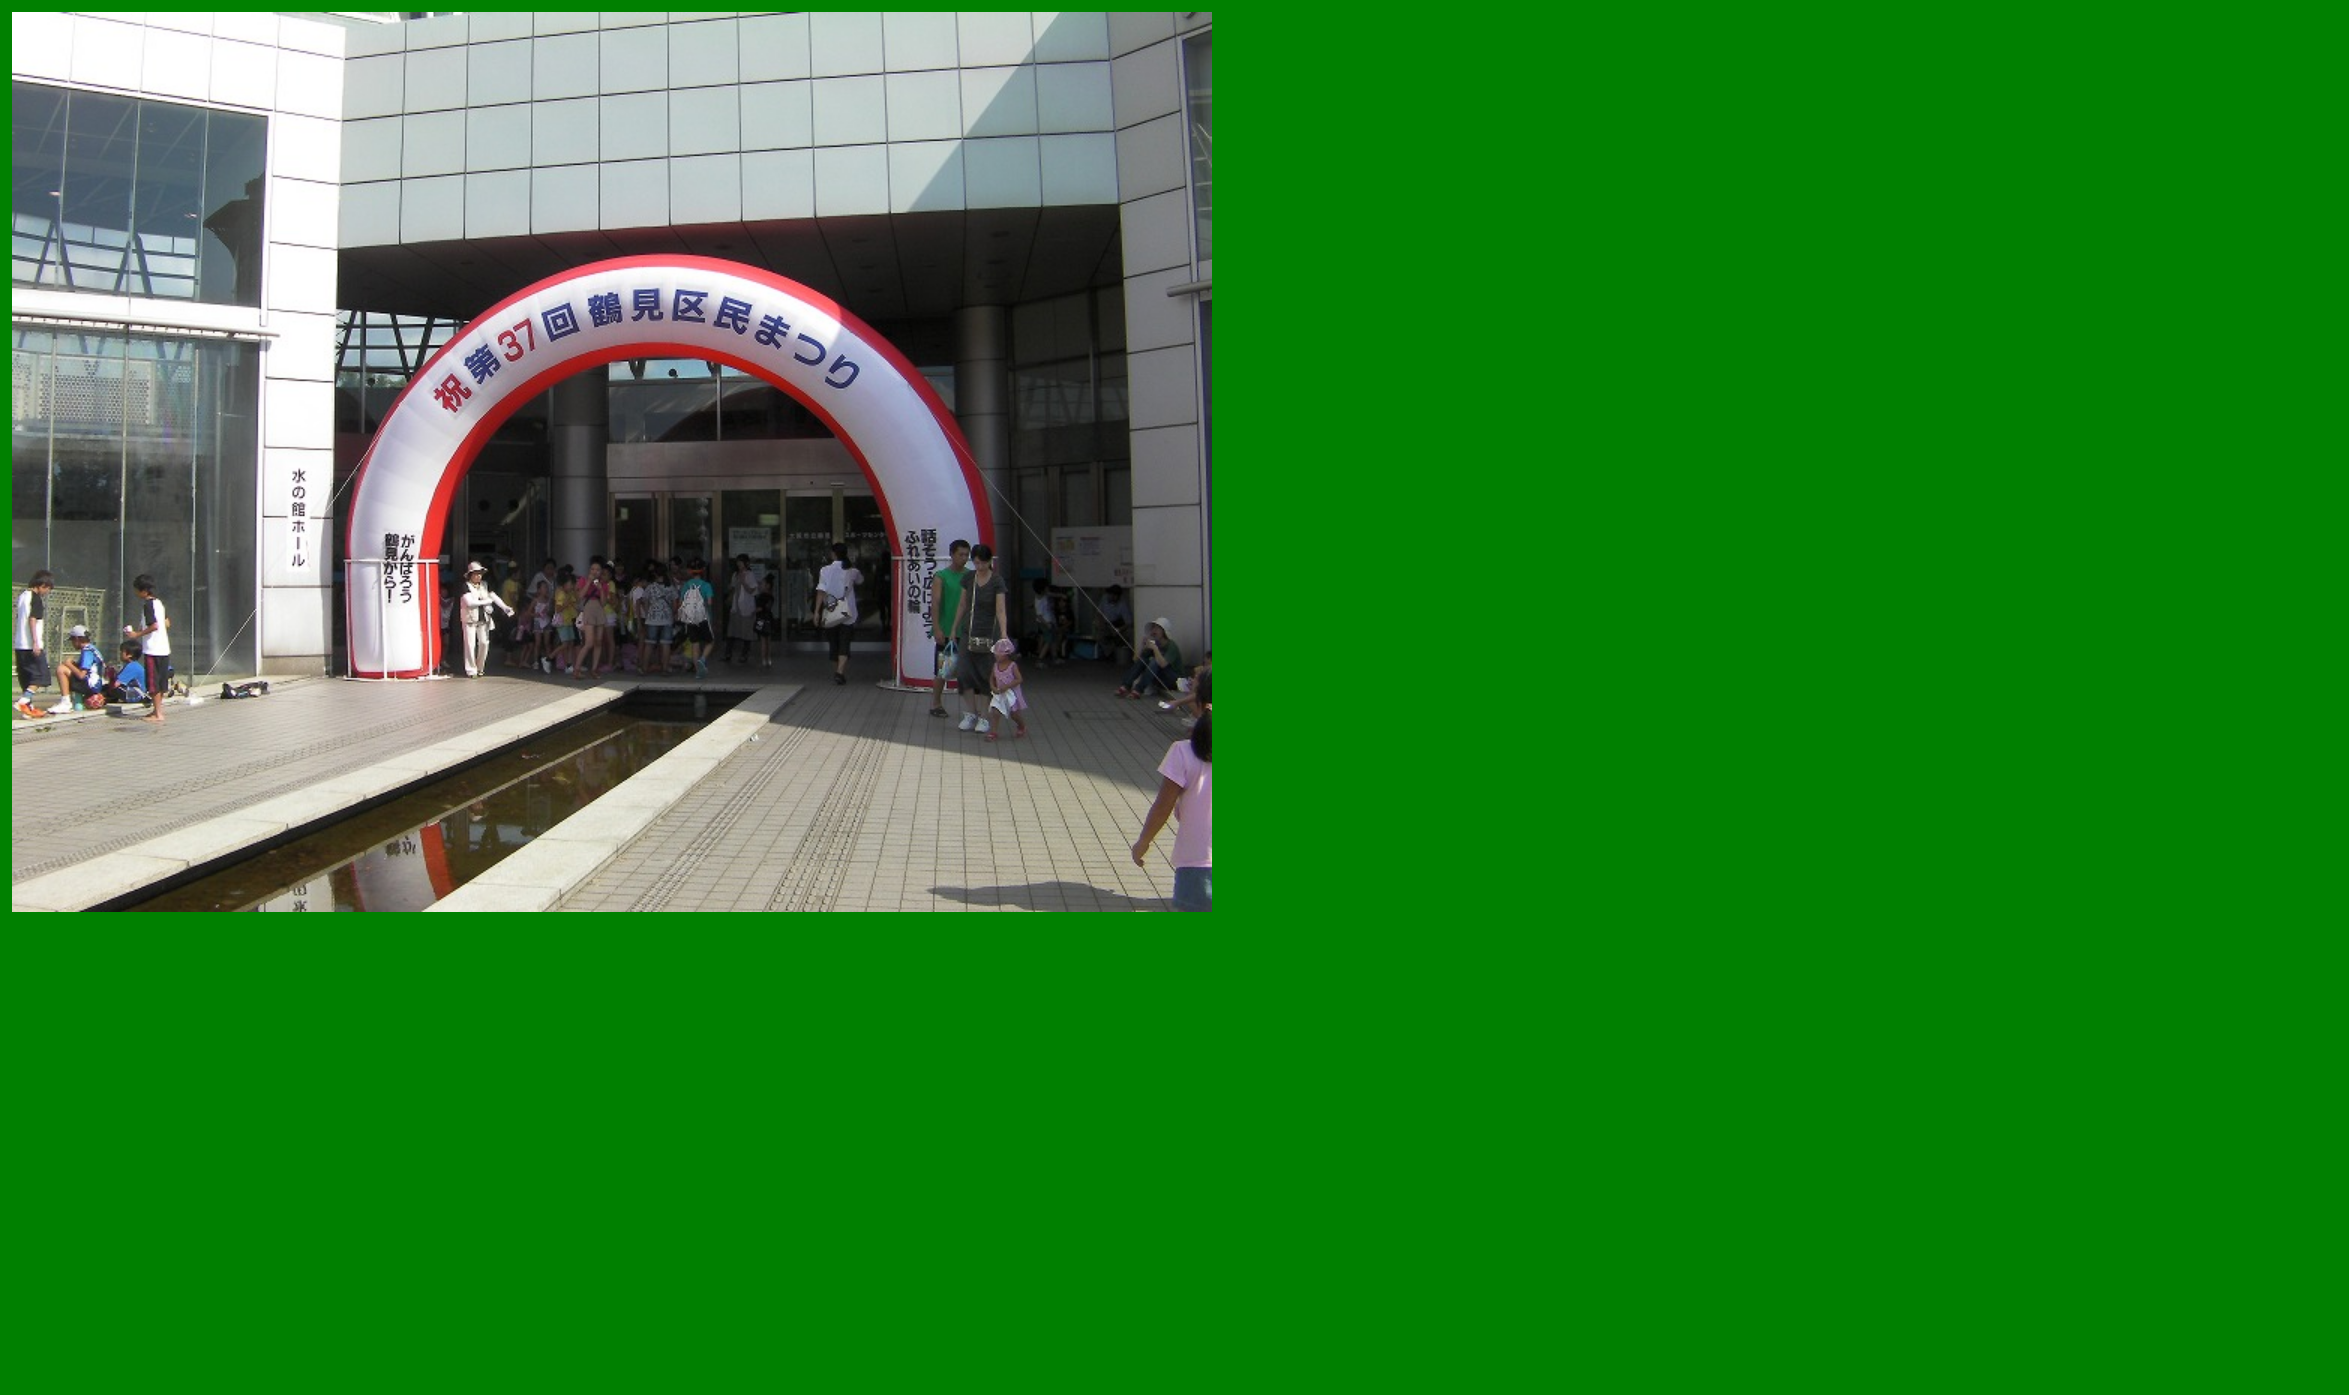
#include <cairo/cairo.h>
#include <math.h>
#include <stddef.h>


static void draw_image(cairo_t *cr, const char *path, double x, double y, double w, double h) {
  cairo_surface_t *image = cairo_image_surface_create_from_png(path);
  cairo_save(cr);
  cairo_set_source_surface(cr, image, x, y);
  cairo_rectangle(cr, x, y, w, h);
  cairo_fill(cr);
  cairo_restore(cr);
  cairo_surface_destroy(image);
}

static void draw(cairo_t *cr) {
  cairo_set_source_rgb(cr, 0, 128 / 255.0, 0);
  cairo_paint(cr);
  draw_image(cr, "images/1.png", 12, 12, 1200, 900);
}

int main(void) {
  cairo_surface_t *surface = cairo_image_surface_create(CAIRO_FORMAT_RGB24, 2349, 1395);
  cairo_t *cr = cairo_create(surface);
  cairo_font_options_t *options = cairo_font_options_create();
  cairo_font_options_set_hint_metrics(options, CAIRO_HINT_METRICS_OFF);
  cairo_font_options_set_hint_style(options, CAIRO_HINT_STYLE_NONE);
  cairo_set_font_options(cr, options);
  cairo_set_miter_limit(cr, 4);
  draw(cr);
  cairo_surface_write_to_png(surface, "out.png");
  cairo_font_options_destroy(options);
  cairo_destroy(cr);
  cairo_surface_destroy(surface);
  return 0;
}
